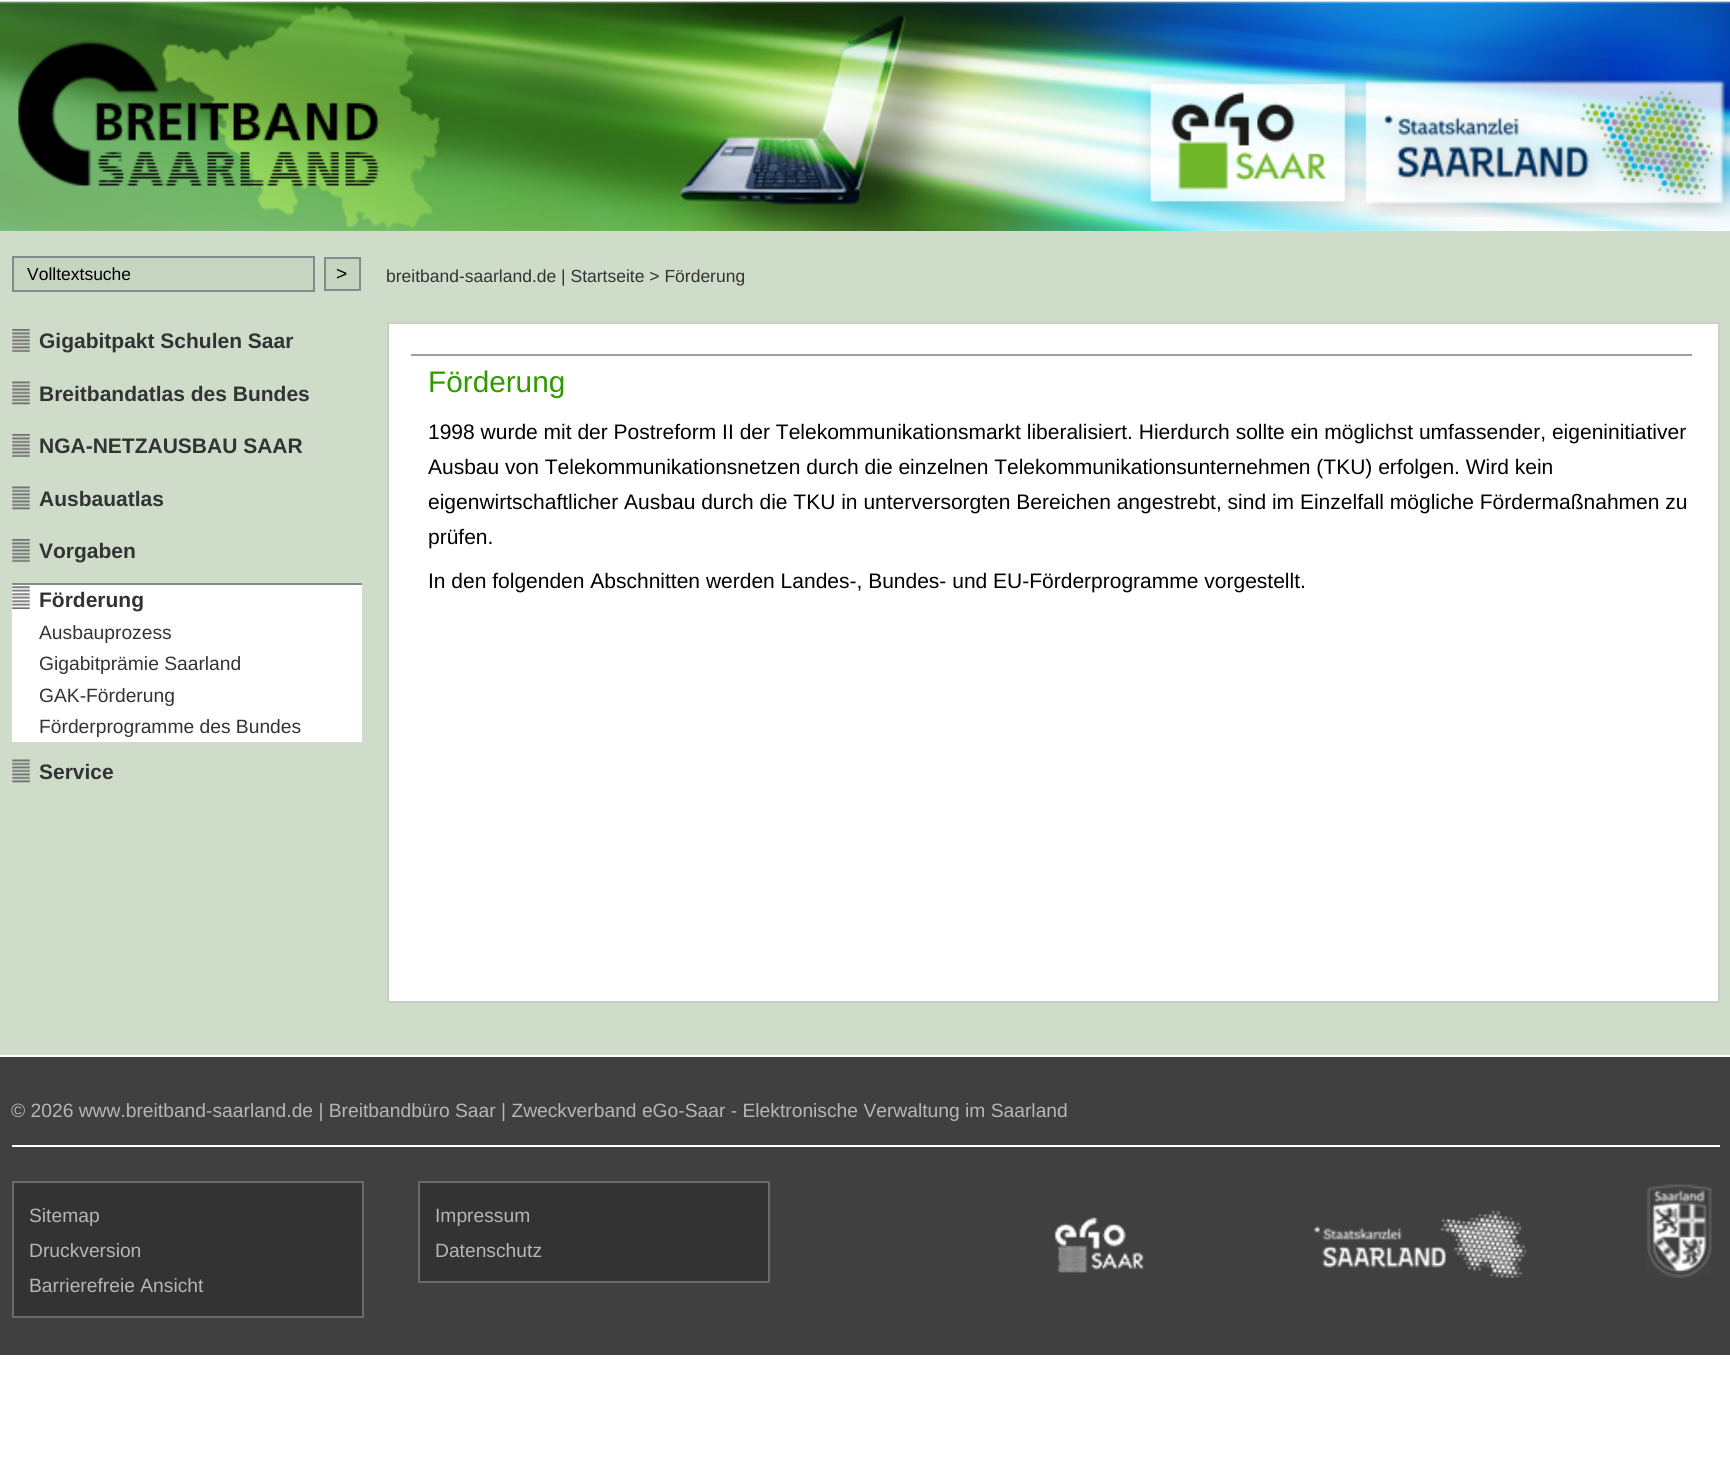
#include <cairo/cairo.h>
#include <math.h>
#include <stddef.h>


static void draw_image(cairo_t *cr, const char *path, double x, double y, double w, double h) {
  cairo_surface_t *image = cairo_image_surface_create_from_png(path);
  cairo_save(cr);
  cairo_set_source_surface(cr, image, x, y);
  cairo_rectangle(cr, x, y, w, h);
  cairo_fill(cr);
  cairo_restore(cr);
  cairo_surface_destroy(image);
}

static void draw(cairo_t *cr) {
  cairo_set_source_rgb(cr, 1, 1, 1);
  cairo_paint(cr);
  draw_image(cr, "images/1.png", 0, 0, 1730, 231);
  cairo_set_source_rgb(cr, 207 / 255.0, 220 / 255.0, 202 / 255.0);
  cairo_rectangle(cr, 0, 231, 1730, 824);
  cairo_fill(cr);
  cairo_set_source_rgb(cr, 198 / 255.0, 213 / 255.0, 192 / 255.0);
  cairo_rectangle(cr, 13, 257, 301, 34);
  cairo_fill_preserve(cr);
  cairo_set_source_rgb(cr, 130 / 255.0, 139 / 255.0, 141 / 255.0);
  cairo_stroke(cr);
  cairo_set_source_rgb(cr, 198 / 255.0, 213 / 255.0, 192 / 255.0);
  cairo_rectangle(cr, 325, 258, 35, 32);
  cairo_fill_preserve(cr);
  cairo_set_source_rgb(cr, 130 / 255.0, 139 / 255.0, 141 / 255.0);
  cairo_stroke(cr);
  draw_image(cr, "images/2.png", 12, 329, 18, 23);
  draw_image(cr, "images/3.png", 12, 381, 18, 24);
  draw_image(cr, "images/2.png", 12, 434, 18, 23);
  draw_image(cr, "images/3.png", 12, 486, 18, 24);
  draw_image(cr, "images/2.png", 12, 539, 18, 23);
  cairo_set_source_rgb(cr, 1, 1, 1);
  cairo_rectangle(cr, 12, 585, 350, 157);
  cairo_fill(cr);
  draw_image(cr, "images/4.png", 12, 586, 18, 23);
  cairo_set_source_rgb(cr, 130 / 255.0, 139 / 255.0, 141 / 255.0);
  cairo_rectangle(cr, 12, 583, 350, 2);
  cairo_fill(cr);
  draw_image(cr, "images/3.png", 12, 759, 18, 24);
  cairo_set_source_rgb(cr, 1, 1, 1);
  cairo_rectangle(cr, 388, 323, 1331, 679);
  cairo_fill_preserve(cr);
  cairo_set_source_rgb(cr, 204 / 255.0, 204 / 255.0, 204 / 255.0);
  cairo_stroke(cr);
  cairo_set_source_rgb(cr, 159 / 255.0, 159 / 255.0, 159 / 255.0);
  cairo_rectangle(cr, 411, 354, 1281, 2);
  cairo_fill(cr);
  cairo_set_source_rgb(cr, 64 / 255.0, 64 / 255.0, 64 / 255.0);
  cairo_rectangle(cr, 0, 1057, 1730, 298);
  cairo_fill(cr);
  cairo_set_source_rgb(cr, 1, 1, 1);
  cairo_rectangle(cr, 12, 1145, 1708, 2);
  cairo_fill(cr);
  cairo_set_source_rgb(cr, 51 / 255.0, 51 / 255.0, 51 / 255.0);
  cairo_rectangle(cr, 13, 1182, 350, 135);
  cairo_fill_preserve(cr);
  cairo_set_source_rgb(cr, 106 / 255.0, 106 / 255.0, 106 / 255.0);
  cairo_stroke(cr);
  cairo_set_source_rgb(cr, 51 / 255.0, 51 / 255.0, 51 / 255.0);
  cairo_rectangle(cr, 419, 1182, 350, 100);
  cairo_fill_preserve(cr);
  cairo_set_source_rgb(cr, 106 / 255.0, 106 / 255.0, 106 / 255.0);
  cairo_stroke(cr);
  draw_image(cr, "images/5.png", 1054, 1217, 90, 56);
  draw_image(cr, "images/6.png", 1313, 1210, 214, 68);
  draw_image(cr, "images/7.png", 1646, 1184, 66, 94);
  cairo_select_font_face(cr, "Liberation Sans", CAIRO_FONT_SLANT_NORMAL, CAIRO_FONT_WEIGHT_NORMAL);
  cairo_set_font_size(cr, 17.5);
  cairo_set_source_rgb(cr, 0, 0, 0);
  cairo_move_to(cr, 27, 280);
  cairo_show_text(cr, "Volltextsuche");
  cairo_set_font_size(cr, 19.25);
  cairo_move_to(cr, 336, 280);
  cairo_show_text(cr, ">");
  cairo_select_font_face(cr, "Liberation Sans", CAIRO_FONT_SLANT_NORMAL, CAIRO_FONT_WEIGHT_BOLD);
  cairo_set_font_size(cr, 21);
  cairo_set_source_rgb(cr, 51 / 255.0, 51 / 255.0, 51 / 255.0);
  cairo_move_to(cr, 39, 348);
  cairo_show_text(cr, "Gigabitpakt Schulen Saar");
  cairo_move_to(cr, 39, 401);
  cairo_show_text(cr, "Breitbandatlas des Bundes");
  cairo_move_to(cr, 39, 453);
  cairo_show_text(cr, "NGA-NETZAUSBAU SAAR");
  cairo_move_to(cr, 39, 506);
  cairo_show_text(cr, "Ausbauatlas");
  cairo_move_to(cr, 39, 558);
  cairo_show_text(cr, "Vorgaben");
  cairo_move_to(cr, 39, 607);
  cairo_show_text(cr, "Förderung");
  cairo_select_font_face(cr, "Liberation Sans", CAIRO_FONT_SLANT_NORMAL, CAIRO_FONT_WEIGHT_NORMAL);
  cairo_set_font_size(cr, 19.25);
  cairo_move_to(cr, 39, 639);
  cairo_show_text(cr, "Ausbauprozess");
  cairo_move_to(cr, 39, 670);
  cairo_show_text(cr, "Gigabitprämie Saarland");
  cairo_move_to(cr, 39, 702);
  cairo_show_text(cr, "GAK-Förderung");
  cairo_move_to(cr, 39, 733);
  cairo_show_text(cr, "Förderprogramme des Bundes");
  cairo_select_font_face(cr, "Liberation Sans", CAIRO_FONT_SLANT_NORMAL, CAIRO_FONT_WEIGHT_BOLD);
  cairo_set_font_size(cr, 21);
  cairo_move_to(cr, 39, 779);
  cairo_show_text(cr, "Service");
  cairo_select_font_face(cr, "Liberation Sans", CAIRO_FONT_SLANT_NORMAL, CAIRO_FONT_WEIGHT_NORMAL);
  cairo_set_font_size(cr, 17.5);
  cairo_move_to(cr, 386, 282);
  cairo_show_text(cr, "breitband-saarland.de | Startseite > Förderung");
  cairo_set_font_size(cr, 29.75);
  cairo_set_source_rgb(cr, 51 / 255.0, 153 / 255.0, 0);
  cairo_move_to(cr, 428, 392);
  cairo_show_text(cr, "Förderung");
  cairo_set_font_size(cr, 21);
  cairo_set_source_rgb(cr, 0, 0, 0);
  cairo_move_to(cr, 428, 439);
  cairo_show_text(cr, "1998 wurde mit der Postreform II der Telekommunikationsmarkt liberalisiert. Hierdurch sollte ein möglichst umfassender, eigeninitiativer");
  cairo_move_to(cr, 428, 474);
  cairo_show_text(cr, "Ausbau von Telekommunikationsnetzen durch die einzelnen Telekommunikationsunternehmen (TKU) erfolgen. Wird kein");
  cairo_move_to(cr, 428, 509);
  cairo_show_text(cr, "eigenwirtschaftlicher Ausbau durch die TKU in unterversorgten Bereichen angestrebt, sind im Einzelfall mögliche Fördermaßnahmen zu");
  cairo_move_to(cr, 428, 544);
  cairo_show_text(cr, "prüfen.");
  cairo_move_to(cr, 428, 588);
  cairo_show_text(cr, "In den folgenden Abschnitten werden Landes-, Bundes- und EU-Förderprogramme vorgestellt.");
  cairo_set_font_size(cr, 19.25);
  cairo_set_source_rgb(cr, 184 / 255.0, 181 / 255.0, 181 / 255.0);
  cairo_move_to(cr, 11, 1117);
  cairo_show_text(cr, "© 2026 www.breitband-saarland.de | Breitbandbüro Saar | Zweckverband eGo-Saar - Elektronische Verwaltung im Saarland");
  cairo_move_to(cr, 29, 1222);
  cairo_show_text(cr, "Sitemap");
  cairo_move_to(cr, 29, 1257);
  cairo_show_text(cr, "Druckversion");
  cairo_move_to(cr, 29, 1292);
  cairo_show_text(cr, "Barrierefreie Ansicht");
  cairo_move_to(cr, 435, 1222);
  cairo_show_text(cr, "Impressum");
  cairo_move_to(cr, 435, 1257);
  cairo_show_text(cr, "Datenschutz");
}

int main(void) {
  cairo_surface_t *surface = cairo_image_surface_create(CAIRO_FORMAT_RGB24, 1730, 1484);
  cairo_t *cr = cairo_create(surface);
  cairo_font_options_t *options = cairo_font_options_create();
  cairo_font_options_set_hint_metrics(options, CAIRO_HINT_METRICS_OFF);
  cairo_font_options_set_hint_style(options, CAIRO_HINT_STYLE_NONE);
  cairo_set_font_options(cr, options);
  cairo_set_miter_limit(cr, 4);
  draw(cr);
  cairo_surface_write_to_png(surface, "out.png");
  cairo_font_options_destroy(options);
  cairo_destroy(cr);
  cairo_surface_destroy(surface);
  return 0;
}
